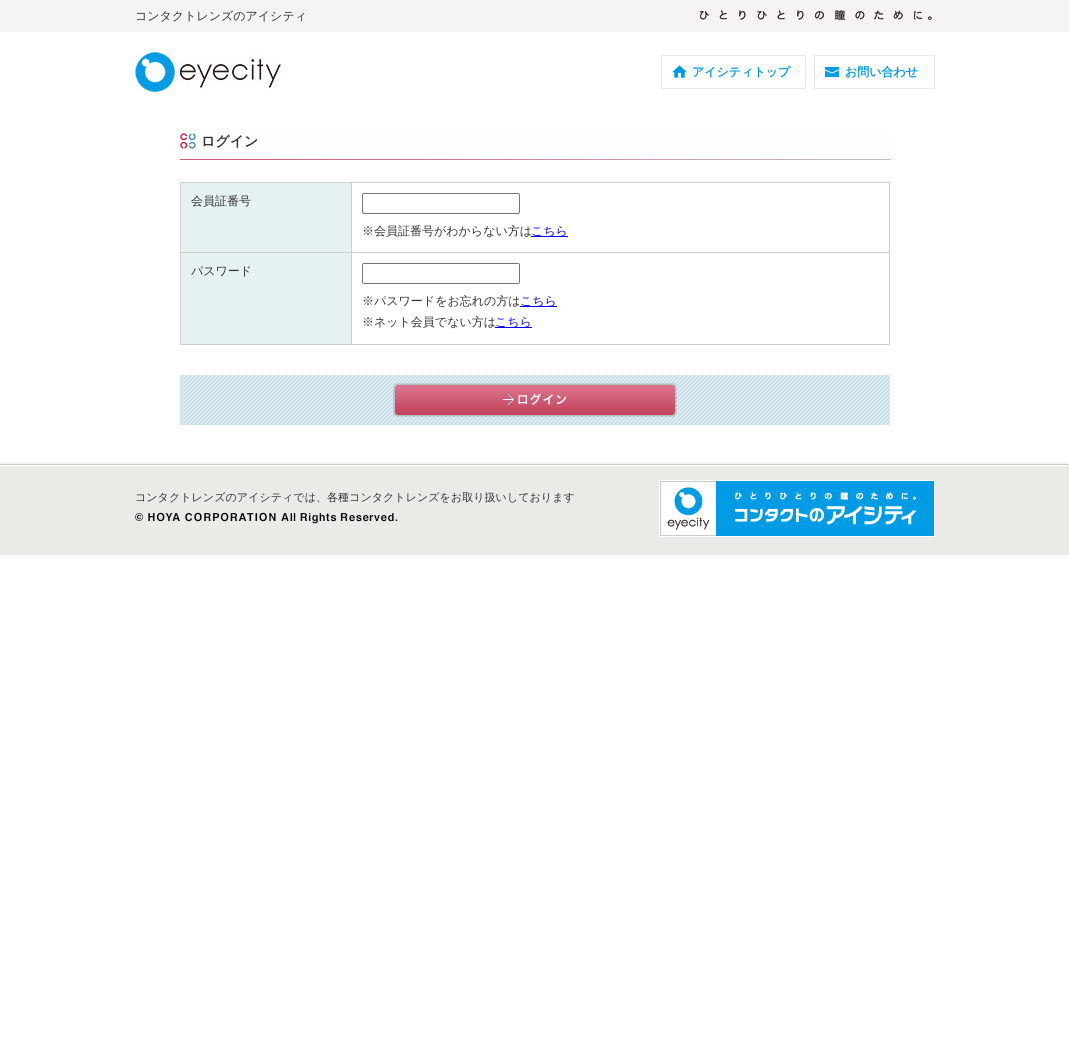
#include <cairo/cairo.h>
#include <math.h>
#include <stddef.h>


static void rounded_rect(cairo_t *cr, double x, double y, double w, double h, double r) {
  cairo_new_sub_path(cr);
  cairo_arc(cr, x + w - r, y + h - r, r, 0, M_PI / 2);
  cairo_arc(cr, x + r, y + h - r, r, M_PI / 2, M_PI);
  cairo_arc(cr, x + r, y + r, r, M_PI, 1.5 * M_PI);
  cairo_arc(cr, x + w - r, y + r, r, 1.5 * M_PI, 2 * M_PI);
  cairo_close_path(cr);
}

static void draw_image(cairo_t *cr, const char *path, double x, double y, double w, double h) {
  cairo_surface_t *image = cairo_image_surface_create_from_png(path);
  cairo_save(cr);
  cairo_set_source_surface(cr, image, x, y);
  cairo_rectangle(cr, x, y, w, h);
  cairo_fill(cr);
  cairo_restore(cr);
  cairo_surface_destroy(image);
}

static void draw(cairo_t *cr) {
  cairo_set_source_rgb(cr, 1, 1, 1);
  cairo_paint(cr);
  cairo_set_source_rgb(cr, 245 / 255.0, 244 / 255.0, 243 / 255.0);
  cairo_rectangle(cr, 0, 0, 1069, 32);
  cairo_fill(cr);
  draw_image(cr, "images/1.png", 699, 10, 233, 10);
  draw_image(cr, "images/2.png", 135, 52, 146, 40);
  cairo_rectangle(cr, 661.5, 55.5, 144, 33);
  cairo_set_source_rgb(cr, 231 / 255.0, 231 / 255.0, 231 / 255.0);
  cairo_set_line_width(cr, 1);
  cairo_stroke(cr);
  draw_image(cr, "images/3.png", 672, 65, 15, 13);
  cairo_rectangle(cr, 814.5, 55.5, 120, 33);
  cairo_stroke(cr);
  draw_image(cr, "images/4.png", 825, 67, 14, 10);
  draw_image(cr, "images/5.png", 180, 133, 711, 27);
  cairo_set_source_rgb(cr, 230 / 255.0, 242 / 255.0, 242 / 255.0);
  cairo_rectangle(cr, 181, 183, 170, 69);
  cairo_fill(cr);
  cairo_set_source_rgb(cr, 207 / 255.0, 207 / 255.0, 207 / 255.0);
  cairo_rectangle(cr, 351, 182, 539, 1);
  cairo_fill(cr);
  cairo_rectangle(cr, 351, 252, 539, 1);
  cairo_fill(cr);
  cairo_rectangle(cr, 889, 252, 1, 93);
  cairo_fill(cr);
  cairo_rectangle(cr, 351, 344, 539, 1);
  cairo_fill(cr);
  cairo_rectangle(cr, 351, 252, 1, 93);
  cairo_fill(cr);
  cairo_rectangle(cr, 180, 252, 172, 1);
  cairo_fill(cr);
  cairo_rectangle(cr, 351, 182, 1, 71);
  cairo_fill(cr);
  cairo_rectangle(cr, 180, 182, 172, 1);
  cairo_fill(cr);
  cairo_rectangle(cr, 180, 344, 172, 1);
  cairo_fill(cr);
  cairo_rectangle(cr, 180, 252, 1, 93);
  cairo_fill(cr);
  cairo_rectangle(cr, 180, 182, 1, 71);
  cairo_fill(cr);
  cairo_rectangle(cr, 889, 182, 1, 71);
  cairo_fill(cr);
  rounded_rect(cr, 362.5, 193.5, 157, 20, 1.5);
  cairo_set_source_rgb(cr, 118 / 255.0, 118 / 255.0, 118 / 255.0);
  cairo_stroke(cr);
  cairo_set_source_rgb(cr, 0, 0, 238 / 255.0);
  cairo_rectangle(cr, 531, 236, 37, 1);
  cairo_fill(cr);
  cairo_set_source_rgb(cr, 230 / 255.0, 242 / 255.0, 242 / 255.0);
  cairo_rectangle(cr, 181, 253, 170, 91);
  cairo_fill(cr);
  rounded_rect(cr, 362.5, 263.5, 157, 20, 1.5);
  cairo_set_source_rgb(cr, 118 / 255.0, 118 / 255.0, 118 / 255.0);
  cairo_stroke(cr);
  cairo_set_source_rgb(cr, 0, 0, 238 / 255.0);
  cairo_rectangle(cr, 520, 306, 37, 1);
  cairo_fill(cr);
  cairo_rectangle(cr, 495, 327, 37, 1);
  cairo_fill(cr);
  draw_image(cr, "images/6.png", 180, 375, 710, 50);
  draw_image(cr, "images/7.png", 393, 383, 284, 34);
  cairo_set_source_rgb(cr, 236 / 255.0, 234 / 255.0, 231 / 255.0);
  cairo_rectangle(cr, 0, 466, 1069, 89);
  cairo_fill(cr);
  draw_image(cr, "images/8.png", 0, 462, 1069, 4);
  draw_image(cr, "images/9.png", 135, 512, 263, 12);
  draw_image(cr, "images/10.png", 659, 480, 276, 57);
  cairo_select_font_face(cr, "WenQuanYi Zen Hei Medium", CAIRO_FONT_SLANT_NORMAL, CAIRO_FONT_WEIGHT_NORMAL);
  cairo_set_font_size(cr, 12);
  cairo_set_source_rgb(cr, 51 / 255.0, 51 / 255.0, 51 / 255.0);
  cairo_move_to(cr, 135, 20);
  cairo_show_text(cr, "コンタクトレンズのアイシティ");
  cairo_select_font_face(cr, "WenQuanYi Zen Hei", CAIRO_FONT_SLANT_NORMAL, CAIRO_FONT_WEIGHT_BOLD);
  cairo_set_source_rgb(cr, 0, 155 / 255.0, 229 / 255.0);
  cairo_move_to(cr, 692, 76);
  cairo_show_text(cr, "アイシティトップ");
  cairo_move_to(cr, 845, 76);
  cairo_show_text(cr, "お問い合わせ");
  cairo_set_font_size(cr, 14);
  cairo_set_source_rgb(cr, 51 / 255.0, 51 / 255.0, 51 / 255.0);
  cairo_move_to(cr, 201, 146);
  cairo_show_text(cr, "ログイン");
  cairo_select_font_face(cr, "WenQuanYi Zen Hei Medium", CAIRO_FONT_SLANT_NORMAL, CAIRO_FONT_WEIGHT_NORMAL);
  cairo_set_font_size(cr, 12);
  cairo_move_to(cr, 191, 205);
  cairo_show_text(cr, "会員証番号");
  cairo_move_to(cr, 362, 235);
  cairo_show_text(cr, "※会員証番号がわからない方は");
  cairo_set_source_rgb(cr, 0, 0, 238 / 255.0);
  cairo_move_to(cr, 531, 235);
  cairo_show_text(cr, "こちら");
  cairo_set_source_rgb(cr, 51 / 255.0, 51 / 255.0, 51 / 255.0);
  cairo_move_to(cr, 191, 275);
  cairo_show_text(cr, "パスワード");
  cairo_move_to(cr, 362, 305);
  cairo_show_text(cr, "※パスワードをお忘れの方は");
  cairo_set_source_rgb(cr, 0, 0, 238 / 255.0);
  cairo_move_to(cr, 520, 305);
  cairo_show_text(cr, "こちら");
  cairo_set_source_rgb(cr, 51 / 255.0, 51 / 255.0, 51 / 255.0);
  cairo_move_to(cr, 362, 326);
  cairo_show_text(cr, "※ネット会員でない方は");
  cairo_set_source_rgb(cr, 0, 0, 238 / 255.0);
  cairo_move_to(cr, 495, 326);
  cairo_show_text(cr, "こちら");
  cairo_set_font_size(cr, 11.05);
  cairo_set_source_rgb(cr, 51 / 255.0, 51 / 255.0, 51 / 255.0);
  cairo_move_to(cr, 135, 501);
  cairo_show_text(cr, "コンタクトレンズのアイシティでは、各種コンタクトレンズをお取り扱いしております");
}

int main(void) {
  cairo_surface_t *surface = cairo_image_surface_create(CAIRO_FORMAT_RGB24, 1069, 1061);
  cairo_t *cr = cairo_create(surface);
  cairo_font_options_t *options = cairo_font_options_create();
  cairo_font_options_set_hint_metrics(options, CAIRO_HINT_METRICS_OFF);
  cairo_font_options_set_hint_style(options, CAIRO_HINT_STYLE_NONE);
  cairo_set_font_options(cr, options);
  cairo_set_miter_limit(cr, 4);
  draw(cr);
  cairo_surface_write_to_png(surface, "out.png");
  cairo_font_options_destroy(options);
  cairo_destroy(cr);
  cairo_surface_destroy(surface);
  return 0;
}
